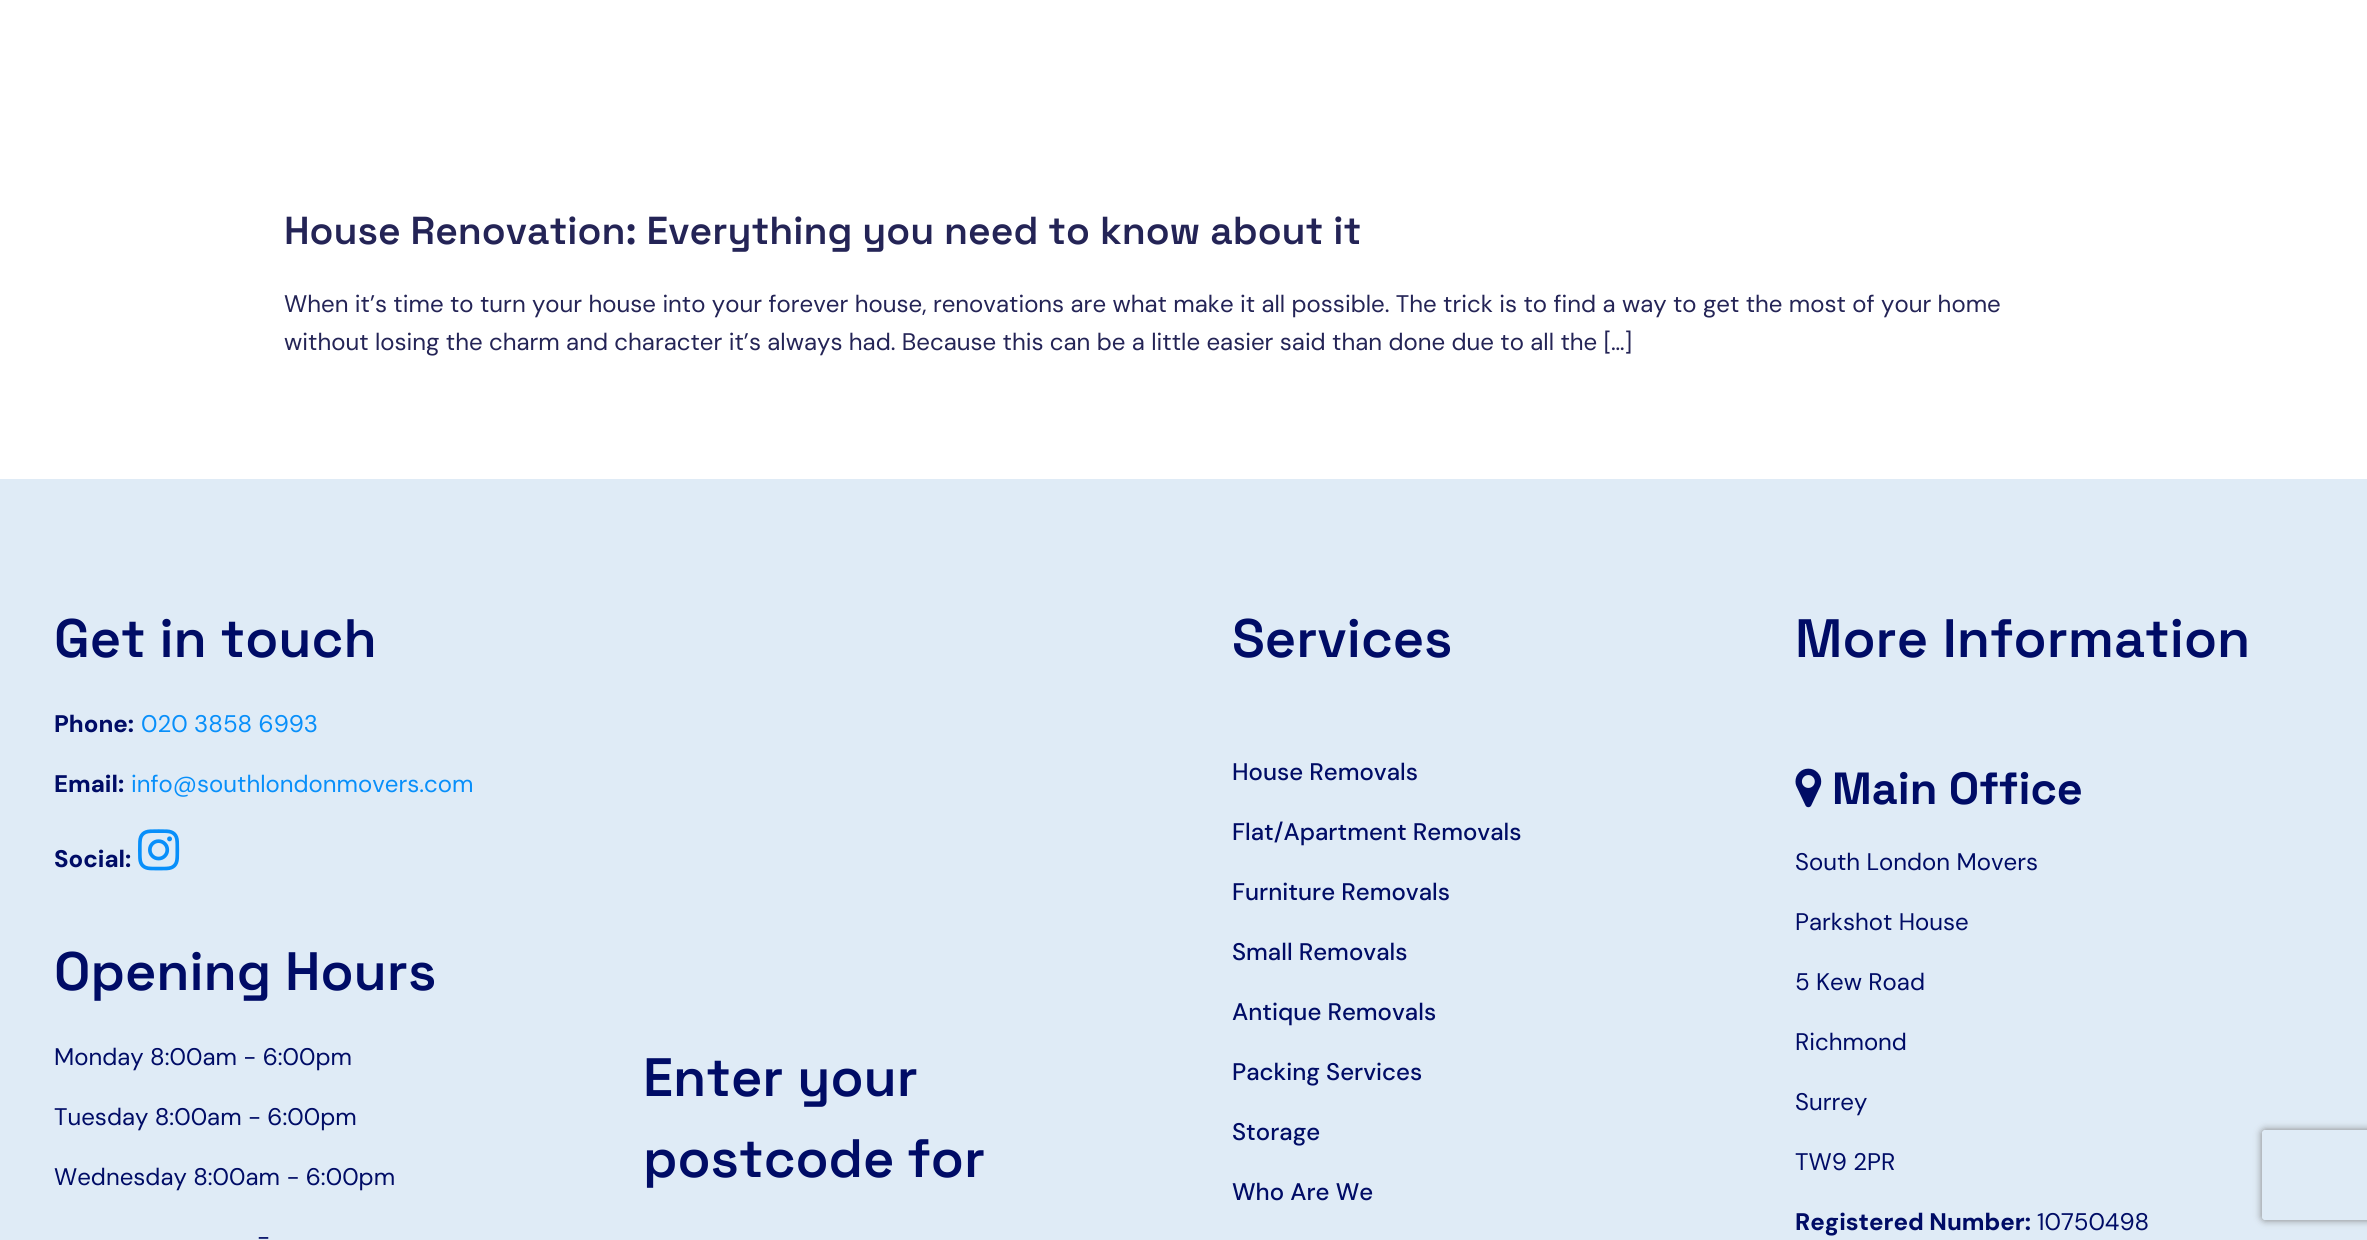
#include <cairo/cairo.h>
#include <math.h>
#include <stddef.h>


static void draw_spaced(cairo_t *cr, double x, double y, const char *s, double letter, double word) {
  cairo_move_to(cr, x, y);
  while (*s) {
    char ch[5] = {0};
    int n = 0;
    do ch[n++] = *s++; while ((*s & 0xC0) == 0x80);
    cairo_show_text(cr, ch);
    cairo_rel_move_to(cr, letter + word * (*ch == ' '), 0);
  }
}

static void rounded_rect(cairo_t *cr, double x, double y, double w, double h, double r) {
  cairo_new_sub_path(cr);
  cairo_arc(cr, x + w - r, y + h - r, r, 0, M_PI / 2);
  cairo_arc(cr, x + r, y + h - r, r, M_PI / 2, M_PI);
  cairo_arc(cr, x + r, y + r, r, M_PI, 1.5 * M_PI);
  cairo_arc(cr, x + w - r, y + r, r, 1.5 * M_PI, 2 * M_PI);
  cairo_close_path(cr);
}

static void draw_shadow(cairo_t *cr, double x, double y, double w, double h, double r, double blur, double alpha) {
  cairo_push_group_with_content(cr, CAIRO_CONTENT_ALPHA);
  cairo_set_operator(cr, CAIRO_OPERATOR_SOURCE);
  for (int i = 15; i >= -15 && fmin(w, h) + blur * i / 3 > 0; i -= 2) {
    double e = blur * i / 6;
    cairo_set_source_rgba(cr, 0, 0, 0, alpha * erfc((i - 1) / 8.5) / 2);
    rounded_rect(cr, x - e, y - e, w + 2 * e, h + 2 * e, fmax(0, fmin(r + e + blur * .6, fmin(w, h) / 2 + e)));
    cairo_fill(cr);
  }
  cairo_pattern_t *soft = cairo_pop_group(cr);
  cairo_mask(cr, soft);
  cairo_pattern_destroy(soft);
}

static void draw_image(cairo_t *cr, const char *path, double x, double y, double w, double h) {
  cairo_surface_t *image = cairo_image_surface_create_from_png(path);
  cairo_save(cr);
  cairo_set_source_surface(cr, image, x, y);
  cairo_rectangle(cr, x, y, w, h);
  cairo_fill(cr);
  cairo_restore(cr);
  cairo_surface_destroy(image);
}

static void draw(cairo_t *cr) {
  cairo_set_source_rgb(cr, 1, 1, 1);
  cairo_paint(cr);
  cairo_set_source_rgb(cr, 223 / 255.0, 235 / 255.0, 246 / 255.0);
  cairo_rectangle(cr, 0, 479, 2367, 761);
  cairo_fill(cr);
  draw_image(cr, "images/1.png", 138, 829, 42, 42);
  draw_image(cr, "images/2.png", 1795, 768, 27, 40);
  cairo_save(cr);
  cairo_set_fill_rule(cr, CAIRO_FILL_RULE_EVEN_ODD);
  cairo_new_path(cr);
  cairo_move_to(cr, 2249, 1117);
  cairo_line_to(cr, 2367, 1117);
  cairo_line_to(cr, 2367, 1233);
  cairo_line_to(cr, 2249, 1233);
  cairo_close_path(cr);
  cairo_move_to(cr, 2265, 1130);
  cairo_line_to(cr, 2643, 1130);
  cairo_curve_to(cr, 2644.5, 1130, 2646, 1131.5, 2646, 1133);
  cairo_line_to(cr, 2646, 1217);
  cairo_curve_to(cr, 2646, 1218.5, 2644.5, 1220, 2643, 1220);
  cairo_line_to(cr, 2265, 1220);
  cairo_curve_to(cr, 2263.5, 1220, 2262, 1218.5, 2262, 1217);
  cairo_line_to(cr, 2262, 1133);
  cairo_curve_to(cr, 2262, 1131.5, 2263.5, 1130, 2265, 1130);
  cairo_close_path(cr);
  cairo_clip(cr);
  cairo_set_source_rgb(cr, 128 / 255.0, 128 / 255.0, 128 / 255.0);
  draw_shadow(cr, 2262, 1130, 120, 90, 3, 4, 1);
  cairo_restore(cr);
  cairo_select_font_face(cr, "Space Grotesk SemiBold", CAIRO_FONT_SLANT_NORMAL, CAIRO_FONT_WEIGHT_NORMAL);
  cairo_set_font_size(cr, 39);
  cairo_set_source_rgb(cr, 36 / 255.0, 36 / 255.0, 86 / 255.0);
  cairo_move_to(cr, 284, 244);
  cairo_show_text(cr, "House Renovation: Everything you need to know about it");
  cairo_select_font_face(cr, "DM Sans", CAIRO_FONT_SLANT_NORMAL, CAIRO_FONT_WEIGHT_NORMAL);
  cairo_set_font_size(cr, 24);
  cairo_move_to(cr, 284, 312);
  cairo_show_text(cr, "When it’s time to turn your house into your forever house, renovations are what make it all possible. The trick is to find a way to get the most of your home");
  cairo_move_to(cr, 284, 350);
  cairo_show_text(cr, "without losing the charm and character it’s always had. Because this can be a little easier said than done due to all the […]");
  cairo_select_font_face(cr, "Space Grotesk SemiBold", CAIRO_FONT_SLANT_NORMAL, CAIRO_FONT_WEIGHT_NORMAL);
  cairo_set_font_size(cr, 54);
  cairo_set_source_rgb(cr, 0, 12 / 255.0, 102 / 255.0);
  cairo_move_to(cr, 54, 657);
  cairo_show_text(cr, "Get in touch");
  cairo_select_font_face(cr, "DM Sans ExtraBold", CAIRO_FONT_SLANT_NORMAL, CAIRO_FONT_WEIGHT_NORMAL);
  cairo_set_font_size(cr, 24);
  cairo_move_to(cr, 54, 732);
  cairo_show_text(cr, "Phone:");
  cairo_select_font_face(cr, "DM Sans", CAIRO_FONT_SLANT_NORMAL, CAIRO_FONT_WEIGHT_NORMAL);
  cairo_set_source_rgb(cr, 8 / 255.0, 143 / 255.0, 250 / 255.0);
  cairo_move_to(cr, 141, 732);
  cairo_show_text(cr, "020 3858 6993");
  cairo_select_font_face(cr, "DM Sans ExtraBold", CAIRO_FONT_SLANT_NORMAL, CAIRO_FONT_WEIGHT_NORMAL);
  cairo_set_source_rgb(cr, 0, 12 / 255.0, 102 / 255.0);
  cairo_move_to(cr, 54, 792);
  cairo_show_text(cr, "Email:");
  cairo_select_font_face(cr, "DM Sans", CAIRO_FONT_SLANT_NORMAL, CAIRO_FONT_WEIGHT_NORMAL);
  cairo_set_source_rgb(cr, 8 / 255.0, 143 / 255.0, 250 / 255.0);
  cairo_move_to(cr, 131, 792);
  cairo_show_text(cr, "info@southlondonmovers.com");
  cairo_select_font_face(cr, "DM Sans ExtraBold", CAIRO_FONT_SLANT_NORMAL, CAIRO_FONT_WEIGHT_NORMAL);
  cairo_set_source_rgb(cr, 0, 12 / 255.0, 102 / 255.0);
  cairo_move_to(cr, 54, 867);
  cairo_show_text(cr, "Social:");
  cairo_select_font_face(cr, "Space Grotesk SemiBold", CAIRO_FONT_SLANT_NORMAL, CAIRO_FONT_WEIGHT_NORMAL);
  cairo_set_font_size(cr, 54);
  cairo_move_to(cr, 54, 990);
  cairo_show_text(cr, "Opening Hours");
  cairo_select_font_face(cr, "DM Sans", CAIRO_FONT_SLANT_NORMAL, CAIRO_FONT_WEIGHT_NORMAL);
  cairo_set_font_size(cr, 24);
  cairo_move_to(cr, 54, 1065);
  cairo_show_text(cr, "Monday 8:00am - 6:00pm");
  cairo_move_to(cr, 54, 1125);
  cairo_show_text(cr, "Tuesday 8:00am - 6:00pm");
  cairo_move_to(cr, 54, 1185);
  cairo_show_text(cr, "Wednesday 8:00am - 6:00pm");
  cairo_move_to(cr, 257, 1245);
  cairo_show_text(cr, "-");
  cairo_select_font_face(cr, "Space Grotesk SemiBold", CAIRO_FONT_SLANT_NORMAL, CAIRO_FONT_WEIGHT_NORMAL);
  cairo_set_font_size(cr, 54);
  cairo_move_to(cr, 643, 1096);
  cairo_show_text(cr, "Enter your");
  draw_spaced(cr, 643, 1177, "postcode for", 0, -1);
  cairo_move_to(cr, 1232, 657);
  cairo_show_text(cr, "Services");
  cairo_select_font_face(cr, "DM Sans Medium", CAIRO_FONT_SLANT_NORMAL, CAIRO_FONT_WEIGHT_NORMAL);
  cairo_set_font_size(cr, 24);
  cairo_move_to(cr, 1232, 780);
  cairo_show_text(cr, "House Removals");
  cairo_move_to(cr, 1232, 840);
  cairo_show_text(cr, "Flat/Apartment Removals");
  cairo_move_to(cr, 1232, 900);
  cairo_show_text(cr, "Furniture Removals");
  cairo_move_to(cr, 1232, 960);
  cairo_show_text(cr, "Small Removals");
  cairo_move_to(cr, 1232, 1020);
  cairo_show_text(cr, "Antique Removals");
  cairo_move_to(cr, 1232, 1080);
  cairo_show_text(cr, "Packing Services");
  cairo_move_to(cr, 1232, 1140);
  cairo_show_text(cr, "Storage");
  cairo_move_to(cr, 1232, 1200);
  cairo_show_text(cr, "Who Are We");
  cairo_select_font_face(cr, "Space Grotesk SemiBold", CAIRO_FONT_SLANT_NORMAL, CAIRO_FONT_WEIGHT_NORMAL);
  cairo_set_font_size(cr, 54);
  draw_spaced(cr, 1795, 657, "More Information", 0, 1);
  cairo_select_font_face(cr, "Space Grotesk", CAIRO_FONT_SLANT_NORMAL, CAIRO_FONT_WEIGHT_BOLD);
  cairo_set_font_size(cr, 45);
  cairo_move_to(cr, 1832, 804);
  cairo_show_text(cr, "Main Office");
  cairo_select_font_face(cr, "DM Sans", CAIRO_FONT_SLANT_NORMAL, CAIRO_FONT_WEIGHT_NORMAL);
  cairo_set_font_size(cr, 24);
  cairo_move_to(cr, 1795, 870);
  cairo_show_text(cr, "South London Movers");
  cairo_move_to(cr, 1795, 930);
  cairo_show_text(cr, "Parkshot House");
  cairo_move_to(cr, 1795, 990);
  cairo_show_text(cr, "5 Kew Road");
  cairo_move_to(cr, 1795, 1050);
  cairo_show_text(cr, "Richmond");
  cairo_move_to(cr, 1795, 1110);
  cairo_show_text(cr, "Surrey");
  cairo_move_to(cr, 1795, 1170);
  cairo_show_text(cr, "TW9 2PR");
  cairo_select_font_face(cr, "DM Sans ExtraBold", CAIRO_FONT_SLANT_NORMAL, CAIRO_FONT_WEIGHT_NORMAL);
  cairo_move_to(cr, 1795, 1230);
  cairo_show_text(cr, "Registered Number:");
  cairo_select_font_face(cr, "DM Sans", CAIRO_FONT_SLANT_NORMAL, CAIRO_FONT_WEIGHT_NORMAL);
  cairo_move_to(cr, 2037, 1230);
  cairo_show_text(cr, "10750498");
}

int main(void) {
  cairo_surface_t *surface = cairo_image_surface_create(CAIRO_FORMAT_RGB24, 2367, 1240);
  cairo_t *cr = cairo_create(surface);
  cairo_font_options_t *options = cairo_font_options_create();
  cairo_font_options_set_hint_metrics(options, CAIRO_HINT_METRICS_OFF);
  cairo_font_options_set_hint_style(options, CAIRO_HINT_STYLE_NONE);
  cairo_set_font_options(cr, options);
  cairo_set_miter_limit(cr, 4);
  draw(cr);
  cairo_surface_write_to_png(surface, "out.png");
  cairo_font_options_destroy(options);
  cairo_destroy(cr);
  cairo_surface_destroy(surface);
  return 0;
}
